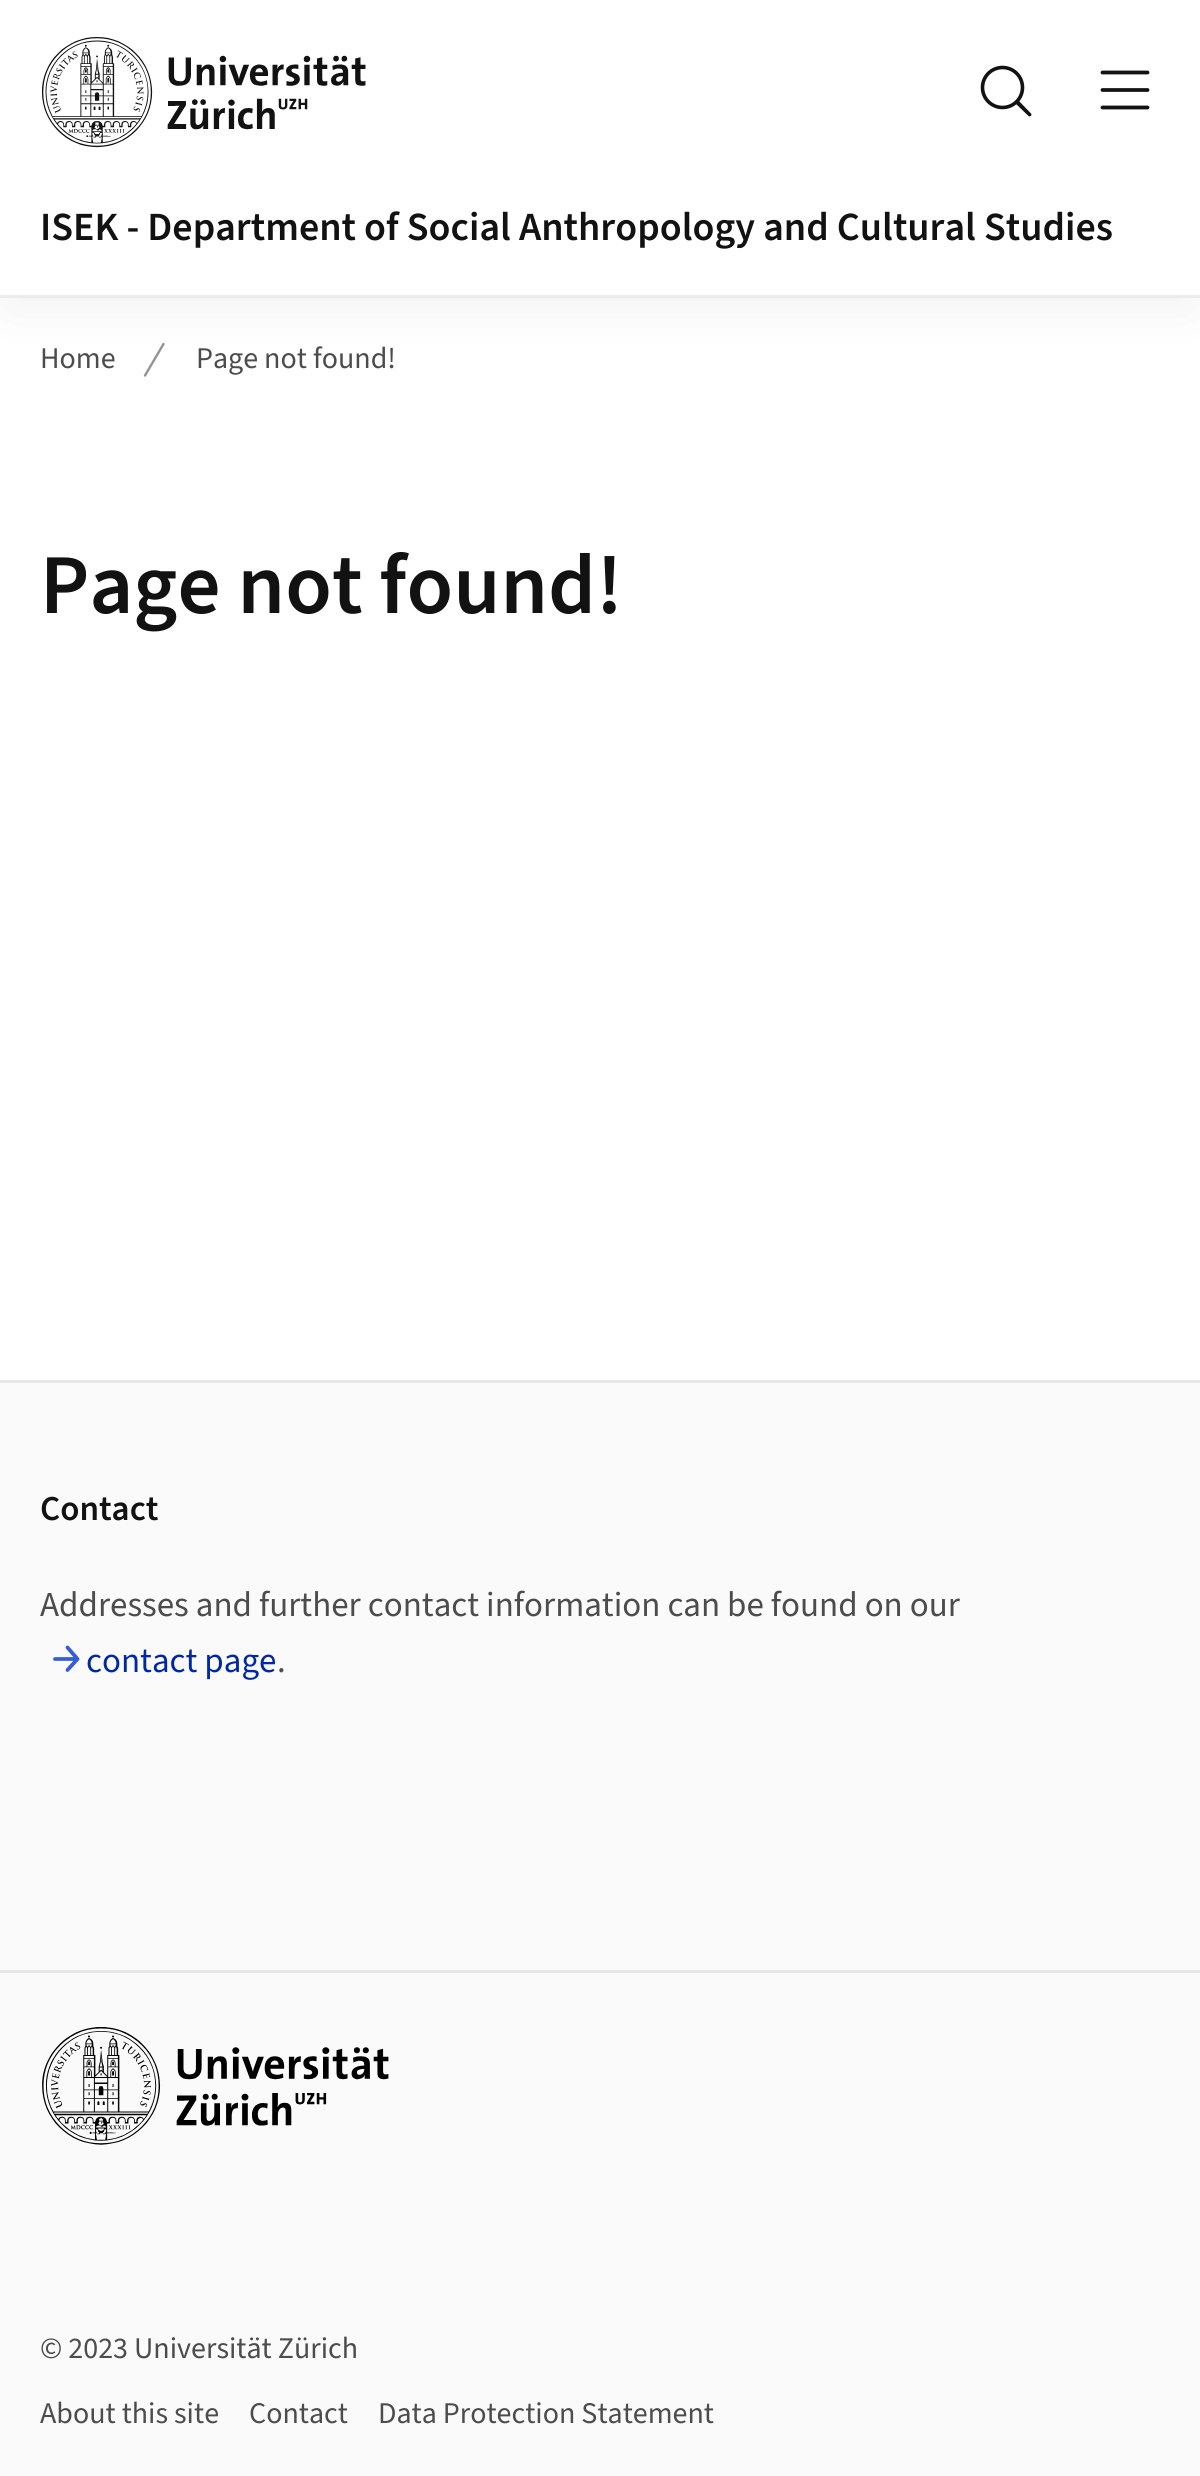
#include <cairo/cairo.h>
#include <math.h>
#include <stddef.h>


static void rounded_rect(cairo_t *cr, double x, double y, double w, double h, double r) {
  cairo_new_sub_path(cr);
  cairo_arc(cr, x + w - r, y + h - r, r, 0, M_PI / 2);
  cairo_arc(cr, x + r, y + h - r, r, M_PI / 2, M_PI);
  cairo_arc(cr, x + r, y + r, r, M_PI, 1.5 * M_PI);
  cairo_arc(cr, x + w - r, y + r, r, 1.5 * M_PI, 2 * M_PI);
  cairo_close_path(cr);
}

static void draw_shadow(cairo_t *cr, double x, double y, double w, double h, double r, double blur, double alpha) {
  cairo_push_group_with_content(cr, CAIRO_CONTENT_ALPHA);
  cairo_set_operator(cr, CAIRO_OPERATOR_SOURCE);
  for (int i = 15; i >= -15 && fmin(w, h) + blur * i / 3 > 0; i -= 2) {
    double e = blur * i / 6;
    cairo_set_source_rgba(cr, 0, 0, 0, alpha * erfc((i - 1) / 8.5) / 2);
    rounded_rect(cr, x - e, y - e, w + 2 * e, h + 2 * e, fmax(0, fmin(r + e + blur * .6, fmin(w, h) / 2 + e)));
    cairo_fill(cr);
  }
  cairo_pattern_t *soft = cairo_pop_group(cr);
  cairo_mask(cr, soft);
  cairo_pattern_destroy(soft);
}

static void draw_image(cairo_t *cr, const char *path, double x, double y, double w, double h) {
  cairo_surface_t *image = cairo_image_surface_create_from_png(path);
  cairo_save(cr);
  cairo_set_source_surface(cr, image, x, y);
  cairo_rectangle(cr, x, y, w, h);
  cairo_fill(cr);
  cairo_restore(cr);
  cairo_surface_destroy(image);
}

static void draw(cairo_t *cr) {
  cairo_set_source_rgb(cr, 1, 1, 1);
  cairo_paint(cr);
  cairo_new_path(cr);
  cairo_move_to(cr, 145, 375.5);
  cairo_line_to(cr, 163.5, 344);
  cairo_set_source_rgb(cr, 148 / 255.0, 148 / 255.0, 148 / 255.0);
  cairo_set_line_width(cr, 2.4);
  cairo_set_line_cap(cr, CAIRO_LINE_CAP_ROUND);
  cairo_stroke(cr);
  cairo_set_source_rgb(cr, 18 / 255.0, 18 / 255.0, 18 / 255.0);
  draw_shadow(cr, 10, 28, 1180, 277, 0, 27.5, 0.07);
  cairo_set_source_rgb(cr, 1, 1, 1);
  cairo_rectangle(cr, 0, 0, 1200, 295);
  cairo_fill(cr);
  cairo_set_source_rgb(cr, 236 / 255.0, 236 / 255.0, 236 / 255.0);
  cairo_rectangle(cr, 0, 295, 1200, 3);
  cairo_fill(cr);
  draw_image(cr, "images/1.png", 41, 37, 325, 111);
  cairo_arc(cr, 1002.5, 87.5, 20, 0, 2 * M_PI);
  cairo_set_source_rgb(cr, 18 / 255.0, 18 / 255.0, 18 / 255.0);
  cairo_set_line_width(cr, 3.6);
  cairo_set_line_cap(cr, CAIRO_LINE_CAP_BUTT);
  cairo_stroke(cr);
  cairo_new_path(cr);
  cairo_move_to(cr, 1018.5, 100.5);
  cairo_curve_to(cr, 1016.5, 99, 1014, 101.5, 1015.5, 103.5);
  cairo_close_path(cr);
  cairo_move_to(cr, 1028.5, 116);
  cairo_curve_to(cr, 1030, 117.5, 1032.5, 115, 1031, 113.5);
  cairo_close_path(cr);
  cairo_move_to(cr, 1015.5, 103.5);
  cairo_line_to(cr, 1028.5, 116);
  cairo_line_to(cr, 1031, 113.5);
  cairo_line_to(cr, 1018.5, 100.5);
  cairo_close_path(cr);
  cairo_fill(cr);
  cairo_new_path(cr);
  cairo_move_to(cr, 1102.5, 72.5);
  cairo_line_to(cr, 1147.5, 72.5);
  cairo_move_to(cr, 1102.5, 90);
  cairo_line_to(cr, 1147.5, 90);
  cairo_move_to(cr, 1102.5, 107.5);
  cairo_line_to(cr, 1147.5, 107.5);
  cairo_set_line_width(cr, 3.8);
  cairo_set_line_cap(cr, CAIRO_LINE_CAP_ROUND);
  cairo_set_line_join(cr, CAIRO_LINE_JOIN_ROUND);
  cairo_stroke(cr);
  cairo_set_source_rgb(cr, 250 / 255.0, 250 / 255.0, 250 / 255.0);
  cairo_rectangle(cr, 0, 1383, 1200, 1093);
  cairo_fill(cr);
  cairo_set_source_rgb(cr, 230 / 255.0, 230 / 255.0, 230 / 255.0);
  cairo_rectangle(cr, 0, 1380, 1200, 3);
  cairo_fill(cr);
  cairo_new_path(cr);
  cairo_move_to(cr, 67.5, 1647.5);
  cairo_line_to(cr, 77.5, 1659);
  cairo_move_to(cr, 77.5, 1659);
  cairo_line_to(cr, 67.5, 1670);
  cairo_move_to(cr, 77.5, 1659);
  cairo_line_to(cr, 55, 1659);
  cairo_set_source_rgb(cr, 54 / 255.0, 93 / 255.0, 213 / 255.0);
  cairo_stroke(cr);
  cairo_set_source_rgb(cr, 230 / 255.0, 230 / 255.0, 230 / 255.0);
  cairo_rectangle(cr, 0, 1970, 1200, 3);
  cairo_fill(cr);
  draw_image(cr, "images/2.png", 42, 2027, 347, 118);
  cairo_select_font_face(cr, "Source Sans 3 SemiBold", CAIRO_FONT_SLANT_NORMAL, CAIRO_FONT_WEIGHT_NORMAL);
  cairo_set_font_size(cr, 40);
  cairo_set_source_rgb(cr, 18 / 255.0, 18 / 255.0, 18 / 255.0);
  cairo_move_to(cr, 40, 240);
  cairo_show_text(cr, "ISEK - Department of Social Anthropology and Cultural Studies");
  cairo_select_font_face(cr, "Source Sans 3", CAIRO_FONT_SLANT_NORMAL, CAIRO_FONT_WEIGHT_NORMAL);
  cairo_set_font_size(cr, 30);
  cairo_set_source_rgb(cr, 76 / 255.0, 76 / 255.0, 76 / 255.0);
  cairo_move_to(cr, 40, 368);
  cairo_show_text(cr, "Home");
  cairo_move_to(cr, 196, 368);
  cairo_show_text(cr, "Page not found!");
  cairo_select_font_face(cr, "Source Sans 3 SemiBold", CAIRO_FONT_SLANT_NORMAL, CAIRO_FONT_WEIGHT_NORMAL);
  cairo_set_font_size(cr, 85);
  cairo_set_source_rgb(cr, 18 / 255.0, 18 / 255.0, 18 / 255.0);
  cairo_move_to(cr, 40, 613);
  cairo_show_text(cr, "Page not found!");
  cairo_set_font_size(cr, 35);
  cairo_move_to(cr, 40, 1520);
  cairo_show_text(cr, "Contact");
  cairo_select_font_face(cr, "Source Sans 3", CAIRO_FONT_SLANT_NORMAL, CAIRO_FONT_WEIGHT_NORMAL);
  cairo_set_source_rgb(cr, 76 / 255.0, 76 / 255.0, 76 / 255.0);
  cairo_move_to(cr, 40, 1616);
  cairo_show_text(cr, "Addresses and further contact information can be found on our");
  cairo_set_source_rgb(cr, 0, 40 / 255.0, 165 / 255.0);
  cairo_move_to(cr, 86, 1672);
  cairo_show_text(cr, "contact page");
  cairo_set_source_rgb(cr, 76 / 255.0, 76 / 255.0, 76 / 255.0);
  cairo_move_to(cr, 277, 1672);
  cairo_show_text(cr, ".");
  cairo_set_font_size(cr, 30);
  cairo_move_to(cr, 40, 2358);
  cairo_show_text(cr, "© 2023 Universität Zürich");
  cairo_move_to(cr, 40, 2423);
  cairo_show_text(cr, "About this site");
  cairo_move_to(cr, 249, 2423);
  cairo_show_text(cr, "Contact");
  cairo_move_to(cr, 378, 2423);
  cairo_show_text(cr, "Data Protection Statement");
}

int main(void) {
  cairo_surface_t *surface = cairo_image_surface_create(CAIRO_FORMAT_RGB24, 1200, 2476);
  cairo_t *cr = cairo_create(surface);
  cairo_font_options_t *options = cairo_font_options_create();
  cairo_font_options_set_hint_metrics(options, CAIRO_HINT_METRICS_OFF);
  cairo_font_options_set_hint_style(options, CAIRO_HINT_STYLE_NONE);
  cairo_set_font_options(cr, options);
  cairo_set_miter_limit(cr, 4);
  draw(cr);
  cairo_surface_write_to_png(surface, "out.png");
  cairo_font_options_destroy(options);
  cairo_destroy(cr);
  cairo_surface_destroy(surface);
  return 0;
}
